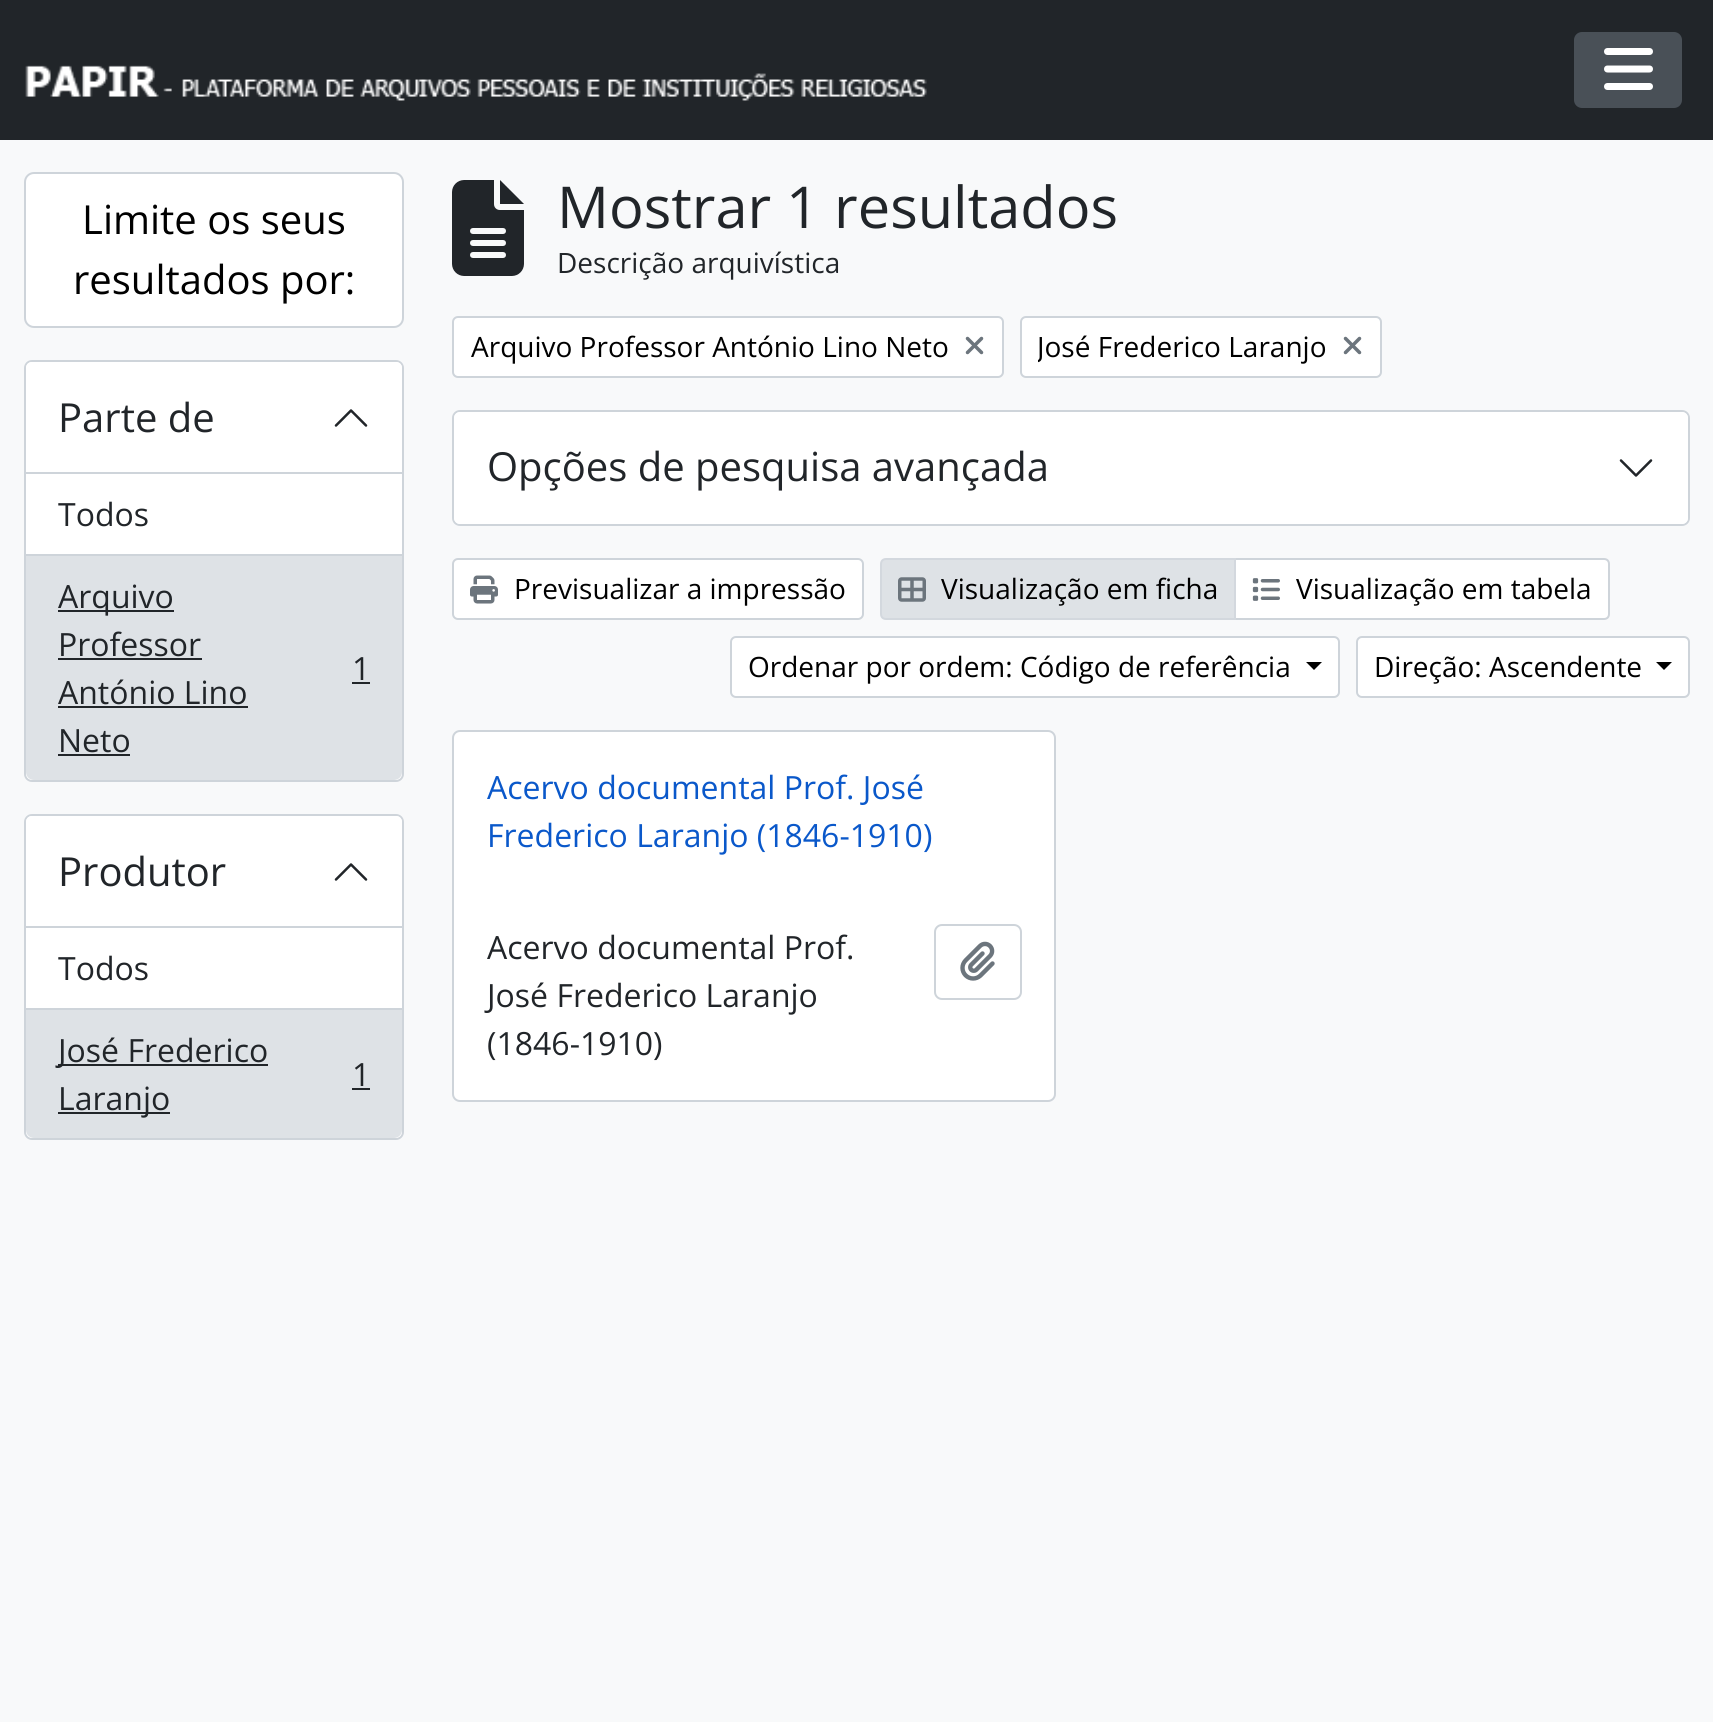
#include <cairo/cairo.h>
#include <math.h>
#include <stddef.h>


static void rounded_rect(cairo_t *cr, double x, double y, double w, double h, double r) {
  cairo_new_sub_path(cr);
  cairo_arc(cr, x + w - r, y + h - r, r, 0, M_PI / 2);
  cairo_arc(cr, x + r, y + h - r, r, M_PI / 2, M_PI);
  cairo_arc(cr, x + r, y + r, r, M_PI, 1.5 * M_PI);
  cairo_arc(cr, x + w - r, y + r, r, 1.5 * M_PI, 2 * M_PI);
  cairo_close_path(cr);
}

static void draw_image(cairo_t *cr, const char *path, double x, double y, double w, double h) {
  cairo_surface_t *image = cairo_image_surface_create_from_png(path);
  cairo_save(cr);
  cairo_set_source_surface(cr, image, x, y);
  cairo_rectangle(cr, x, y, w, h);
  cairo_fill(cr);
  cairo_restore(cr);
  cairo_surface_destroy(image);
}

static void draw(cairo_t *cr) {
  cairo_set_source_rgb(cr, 248 / 255.0, 249 / 255.0, 250 / 255.0);
  cairo_paint(cr);
  cairo_set_source_rgb(cr, 33 / 255.0, 37 / 255.0, 41 / 255.0);
  cairo_rectangle(cr, 0, 0, 1713, 140);
  cairo_fill(cr);
  draw_image(cr, "images/1.png", 25, 65, 902, 36);
  cairo_set_source_rgb(cr, 73 / 255.0, 80 / 255.0, 87 / 255.0);
  rounded_rect(cr, 1575, 33, 106, 74, 7);
  cairo_fill_preserve(cr);
  cairo_stroke(cr);
  draw_image(cr, "images/2.png", 1604, 48, 49, 42);
  cairo_set_source_rgb(cr, 1, 1, 1);
  rounded_rect(cr, 25, 173, 378, 154, 9);
  cairo_fill_preserve(cr);
  cairo_set_source_rgb(cr, 206 / 255.0, 212 / 255.0, 218 / 255.0);
  cairo_stroke(cr);
  cairo_set_source_rgb(cr, 1, 1, 1);
  rounded_rect(cr, 25, 361, 378, 420, 7);
  cairo_fill_preserve(cr);
  cairo_set_source_rgb(cr, 206 / 255.0, 212 / 255.0, 218 / 255.0);
  cairo_stroke(cr);
  cairo_set_source_rgb(cr, 1, 1, 1);
  cairo_new_path(cr);
  cairo_move_to(cr, 32, 362);
  cairo_line_to(cr, 396, 362);
  cairo_curve_to(cr, 399.5, 362, 402, 364.5, 402, 368);
  cairo_line_to(cr, 402, 474);
  cairo_line_to(cr, 26, 474);
  cairo_line_to(cr, 26, 368);
  cairo_curve_to(cr, 26, 364.5, 28.5, 362, 32, 362);
  cairo_close_path(cr);
  cairo_fill(cr);
  cairo_set_source_rgb(cr, 206 / 255.0, 212 / 255.0, 218 / 255.0);
  cairo_rectangle(cr, 26, 472, 376, 2);
  cairo_fill(cr);
  draw_image(cr, "images/3.png", 334, 409, 34, 18);
  cairo_rectangle(cr, 26, 554, 376, 2);
  cairo_fill(cr);
  cairo_set_source_rgb(cr, 222 / 255.0, 226 / 255.0, 230 / 255.0);
  cairo_new_path(cr);
  cairo_move_to(cr, 26, 556);
  cairo_line_to(cr, 402, 556);
  cairo_line_to(cr, 402, 772);
  cairo_curve_to(cr, 402, 776.5, 398.5, 780, 394, 780);
  cairo_line_to(cr, 34, 780);
  cairo_curve_to(cr, 29.5, 780, 26, 776.5, 26, 772);
  cairo_close_path(cr);
  cairo_fill(cr);
  cairo_set_source_rgb(cr, 33 / 255.0, 37 / 255.0, 41 / 255.0);
  cairo_rectangle(cr, 58, 610, 116, 2);
  cairo_fill(cr);
  cairo_rectangle(cr, 58, 658, 144, 2);
  cairo_fill(cr);
  cairo_rectangle(cr, 352, 682, 18, 2);
  cairo_fill(cr);
  cairo_rectangle(cr, 58, 706, 190, 2);
  cairo_fill(cr);
  cairo_rectangle(cr, 58, 754, 72, 2);
  cairo_fill(cr);
  cairo_set_source_rgb(cr, 1, 1, 1);
  rounded_rect(cr, 25, 815, 378, 324, 7);
  cairo_fill_preserve(cr);
  cairo_set_source_rgb(cr, 206 / 255.0, 212 / 255.0, 218 / 255.0);
  cairo_stroke(cr);
  cairo_set_source_rgb(cr, 1, 1, 1);
  cairo_new_path(cr);
  cairo_move_to(cr, 32, 816);
  cairo_line_to(cr, 396, 816);
  cairo_curve_to(cr, 399.5, 816, 402, 818.5, 402, 822);
  cairo_line_to(cr, 402, 928);
  cairo_line_to(cr, 26, 928);
  cairo_line_to(cr, 26, 822);
  cairo_curve_to(cr, 26, 818.5, 28.5, 816, 32, 816);
  cairo_close_path(cr);
  cairo_fill(cr);
  cairo_set_source_rgb(cr, 206 / 255.0, 212 / 255.0, 218 / 255.0);
  cairo_rectangle(cr, 26, 926, 376, 2);
  cairo_fill(cr);
  draw_image(cr, "images/3.png", 334, 863, 34, 18);
  cairo_rectangle(cr, 26, 1008, 376, 2);
  cairo_fill(cr);
  cairo_set_source_rgb(cr, 222 / 255.0, 226 / 255.0, 230 / 255.0);
  cairo_new_path(cr);
  cairo_move_to(cr, 26, 1010);
  cairo_line_to(cr, 402, 1010);
  cairo_line_to(cr, 402, 1130);
  cairo_curve_to(cr, 402, 1134.5, 398.5, 1138, 394, 1138);
  cairo_line_to(cr, 34, 1138);
  cairo_curve_to(cr, 29.5, 1138, 26, 1134.5, 26, 1130);
  cairo_close_path(cr);
  cairo_fill(cr);
  cairo_set_source_rgb(cr, 33 / 255.0, 37 / 255.0, 41 / 255.0);
  cairo_rectangle(cr, 58, 1064, 210, 2);
  cairo_fill(cr);
  cairo_rectangle(cr, 352, 1088, 18, 2);
  cairo_fill(cr);
  cairo_rectangle(cr, 58, 1112, 112, 2);
  cairo_fill(cr);
  draw_image(cr, "images/4.png", 452, 180, 72, 96);
  cairo_set_source_rgb(cr, 1, 1, 1);
  rounded_rect(cr, 453, 317, 550, 60, 5);
  cairo_fill_preserve(cr);
  cairo_set_source_rgb(cr, 206 / 255.0, 212 / 255.0, 218 / 255.0);
  cairo_stroke(cr);
  draw_image(cr, "images/5.png", 965, 336, 19, 19);
  cairo_set_source_rgb(cr, 1, 1, 1);
  rounded_rect(cr, 1021, 317, 360, 60, 5);
  cairo_fill_preserve(cr);
  cairo_set_source_rgb(cr, 206 / 255.0, 212 / 255.0, 218 / 255.0);
  cairo_stroke(cr);
  draw_image(cr, "images/5.png", 1343, 336, 19, 19);
  rounded_rect(cr, 453, 411, 1236, 114, 7);
  cairo_stroke(cr);
  cairo_set_source_rgb(cr, 1, 1, 1);
  rounded_rect(cr, 454, 412, 1234, 112, 6);
  cairo_fill(cr);
  draw_image(cr, "images/6.png", 1619, 459, 34, 18);
  rounded_rect(cr, 453, 559, 410, 60, 5);
  cairo_fill_preserve(cr);
  cairo_set_source_rgb(cr, 206 / 255.0, 212 / 255.0, 218 / 255.0);
  cairo_stroke(cr);
  draw_image(cr, "images/7.png", 470, 575, 28, 29);
  cairo_set_source_rgb(cr, 1, 1, 1);
  cairo_new_path(cr);
  cairo_move_to(cr, 1235, 559);
  cairo_line_to(cr, 1604, 559);
  cairo_curve_to(cr, 1607, 559, 1609, 561, 1609, 564);
  cairo_line_to(cr, 1609, 614);
  cairo_curve_to(cr, 1609, 617, 1607, 619, 1604, 619);
  cairo_line_to(cr, 1235, 619);
  cairo_close_path(cr);
  cairo_fill_preserve(cr);
  cairo_set_source_rgb(cr, 206 / 255.0, 212 / 255.0, 218 / 255.0);
  cairo_stroke(cr);
  cairo_set_source_rgb(cr, 222 / 255.0, 226 / 255.0, 230 / 255.0);
  cairo_new_path(cr);
  cairo_move_to(cr, 886, 559);
  cairo_line_to(cr, 1235, 559);
  cairo_line_to(cr, 1235, 619);
  cairo_line_to(cr, 886, 619);
  cairo_curve_to(cr, 883, 619, 881, 617, 881, 614);
  cairo_line_to(cr, 881, 564);
  cairo_curve_to(cr, 881, 561, 883, 559, 886, 559);
  cairo_close_path(cr);
  cairo_fill_preserve(cr);
  cairo_set_source_rgb(cr, 211 / 255.0, 216 / 255.0, 222 / 255.0);
  cairo_stroke(cr);
  draw_image(cr, "images/8.png", 898, 577, 28, 25);
  draw_image(cr, "images/9.png", 1252, 578, 28, 23);
  cairo_set_source_rgb(cr, 1, 1, 1);
  rounded_rect(cr, 731, 637, 608, 60, 5);
  cairo_fill_preserve(cr);
  cairo_set_source_rgb(cr, 206 / 255.0, 212 / 255.0, 218 / 255.0);
  cairo_stroke(cr);
  cairo_set_source_rgb(cr, 0, 0, 0);
  cairo_new_path(cr);
  cairo_move_to(cr, 1306, 662);
  cairo_line_to(cr, 1322, 662);
  cairo_line_to(cr, 1314, 670);
  cairo_close_path(cr);
  cairo_fill(cr);
  cairo_set_source_rgb(cr, 1, 1, 1);
  rounded_rect(cr, 1357, 637, 332, 60, 5);
  cairo_fill_preserve(cr);
  cairo_set_source_rgb(cr, 206 / 255.0, 212 / 255.0, 218 / 255.0);
  cairo_stroke(cr);
  cairo_set_source_rgb(cr, 0, 0, 0);
  cairo_new_path(cr);
  cairo_move_to(cr, 1656, 662);
  cairo_line_to(cr, 1672, 662);
  cairo_line_to(cr, 1664, 670);
  cairo_close_path(cr);
  cairo_fill(cr);
  cairo_set_source_rgb(cr, 1, 1, 1);
  rounded_rect(cr, 453, 731, 602, 370, 7);
  cairo_fill_preserve(cr);
  cairo_set_source_rgb(cr, 206 / 255.0, 212 / 255.0, 218 / 255.0);
  cairo_stroke(cr);
  rounded_rect(cr, 935, 925, 86, 74, 7);
  cairo_stroke(cr);
  draw_image(cr, "images/10.png", 960, 941, 35, 40);
  cairo_select_font_face(cr, "Open Sans", CAIRO_FONT_SLANT_NORMAL, CAIRO_FONT_WEIGHT_NORMAL);
  cairo_set_font_size(cr, 40);
  cairo_set_source_rgb(cr, 0, 0, 0);
  cairo_move_to(cr, 82, 234);
  cairo_show_text(cr, "Limite os seus");
  cairo_move_to(cr, 73, 294);
  cairo_show_text(cr, "resultados por:");
  cairo_set_source_rgb(cr, 33 / 255.0, 37 / 255.0, 41 / 255.0);
  cairo_move_to(cr, 58, 432);
  cairo_show_text(cr, "Parte de");
  cairo_set_font_size(cr, 32);
  cairo_move_to(cr, 58, 526);
  cairo_show_text(cr, "Todos");
  cairo_move_to(cr, 58, 608);
  cairo_show_text(cr, "Arquivo");
  cairo_move_to(cr, 58, 656);
  cairo_show_text(cr, "Professor");
  cairo_move_to(cr, 352, 680);
  cairo_show_text(cr, "1");
  cairo_move_to(cr, 58, 704);
  cairo_show_text(cr, "António Lino");
  cairo_move_to(cr, 58, 752);
  cairo_show_text(cr, "Neto");
  cairo_set_font_size(cr, 40);
  cairo_move_to(cr, 58, 886);
  cairo_show_text(cr, "Produtor");
  cairo_set_font_size(cr, 32);
  cairo_move_to(cr, 58, 980);
  cairo_show_text(cr, "Todos");
  cairo_move_to(cr, 58, 1062);
  cairo_show_text(cr, "José Frederico");
  cairo_move_to(cr, 352, 1086);
  cairo_show_text(cr, "1");
  cairo_move_to(cr, 58, 1110);
  cairo_show_text(cr, "Laranjo");
  cairo_set_font_size(cr, 57.75);
  cairo_move_to(cr, 557, 228);
  cairo_show_text(cr, "Mostrar 1 resultados");
  cairo_set_font_size(cr, 28);
  cairo_move_to(cr, 557, 273);
  cairo_show_text(cr, "Descrição arquivística");
  cairo_set_source_rgb(cr, 0, 0, 0);
  cairo_move_to(cr, 471, 357);
  cairo_show_text(cr, "Arquivo Professor António Lino Neto");
  cairo_save(cr);
  cairo_rectangle(cr, 1038, 326, 288, 42);
  cairo_clip(cr);
  cairo_move_to(cr, 1037, 357);
  cairo_show_text(cr, "José Frederico Laranjo");
  cairo_restore(cr);
  cairo_set_font_size(cr, 40);
  cairo_set_source_rgb(cr, 33 / 255.0, 37 / 255.0, 41 / 255.0);
  cairo_move_to(cr, 487, 481);
  cairo_show_text(cr, "Opções de pesquisa avançada");
  cairo_set_font_size(cr, 28);
  cairo_set_source_rgb(cr, 0, 0, 0);
  cairo_move_to(cr, 514, 599);
  cairo_show_text(cr, "Previsualizar a impressão");
  cairo_move_to(cr, 941, 599);
  cairo_show_text(cr, "Visualização em ficha");
  cairo_move_to(cr, 1296, 599);
  cairo_show_text(cr, "Visualização em tabela");
  cairo_move_to(cr, 748, 677);
  cairo_show_text(cr, "Ordenar por ordem: Código de referência");
  cairo_move_to(cr, 1374, 677);
  cairo_show_text(cr, "Direção: Ascendente");
  cairo_set_font_size(cr, 32);
  cairo_set_source_rgb(cr, 10 / 255.0, 88 / 255.0, 202 / 255.0);
  cairo_move_to(cr, 487, 799);
  cairo_show_text(cr, "Acervo documental Prof. José");
  cairo_move_to(cr, 487, 847);
  cairo_show_text(cr, "Frederico Laranjo (1846-1910)");
  cairo_set_source_rgb(cr, 33 / 255.0, 37 / 255.0, 41 / 255.0);
  cairo_move_to(cr, 487, 959);
  cairo_show_text(cr, "Acervo documental Prof.");
  cairo_move_to(cr, 487, 1007);
  cairo_show_text(cr, "José Frederico Laranjo");
  cairo_move_to(cr, 487, 1055);
  cairo_show_text(cr, "(1846-1910)");
}

int main(void) {
  cairo_surface_t *surface = cairo_image_surface_create(CAIRO_FORMAT_RGB24, 1713, 1722);
  cairo_t *cr = cairo_create(surface);
  cairo_font_options_t *options = cairo_font_options_create();
  cairo_font_options_set_hint_metrics(options, CAIRO_HINT_METRICS_OFF);
  cairo_font_options_set_hint_style(options, CAIRO_HINT_STYLE_NONE);
  cairo_set_font_options(cr, options);
  cairo_set_miter_limit(cr, 4);
  draw(cr);
  cairo_surface_write_to_png(surface, "out.png");
  cairo_font_options_destroy(options);
  cairo_destroy(cr);
  cairo_surface_destroy(surface);
  return 0;
}
